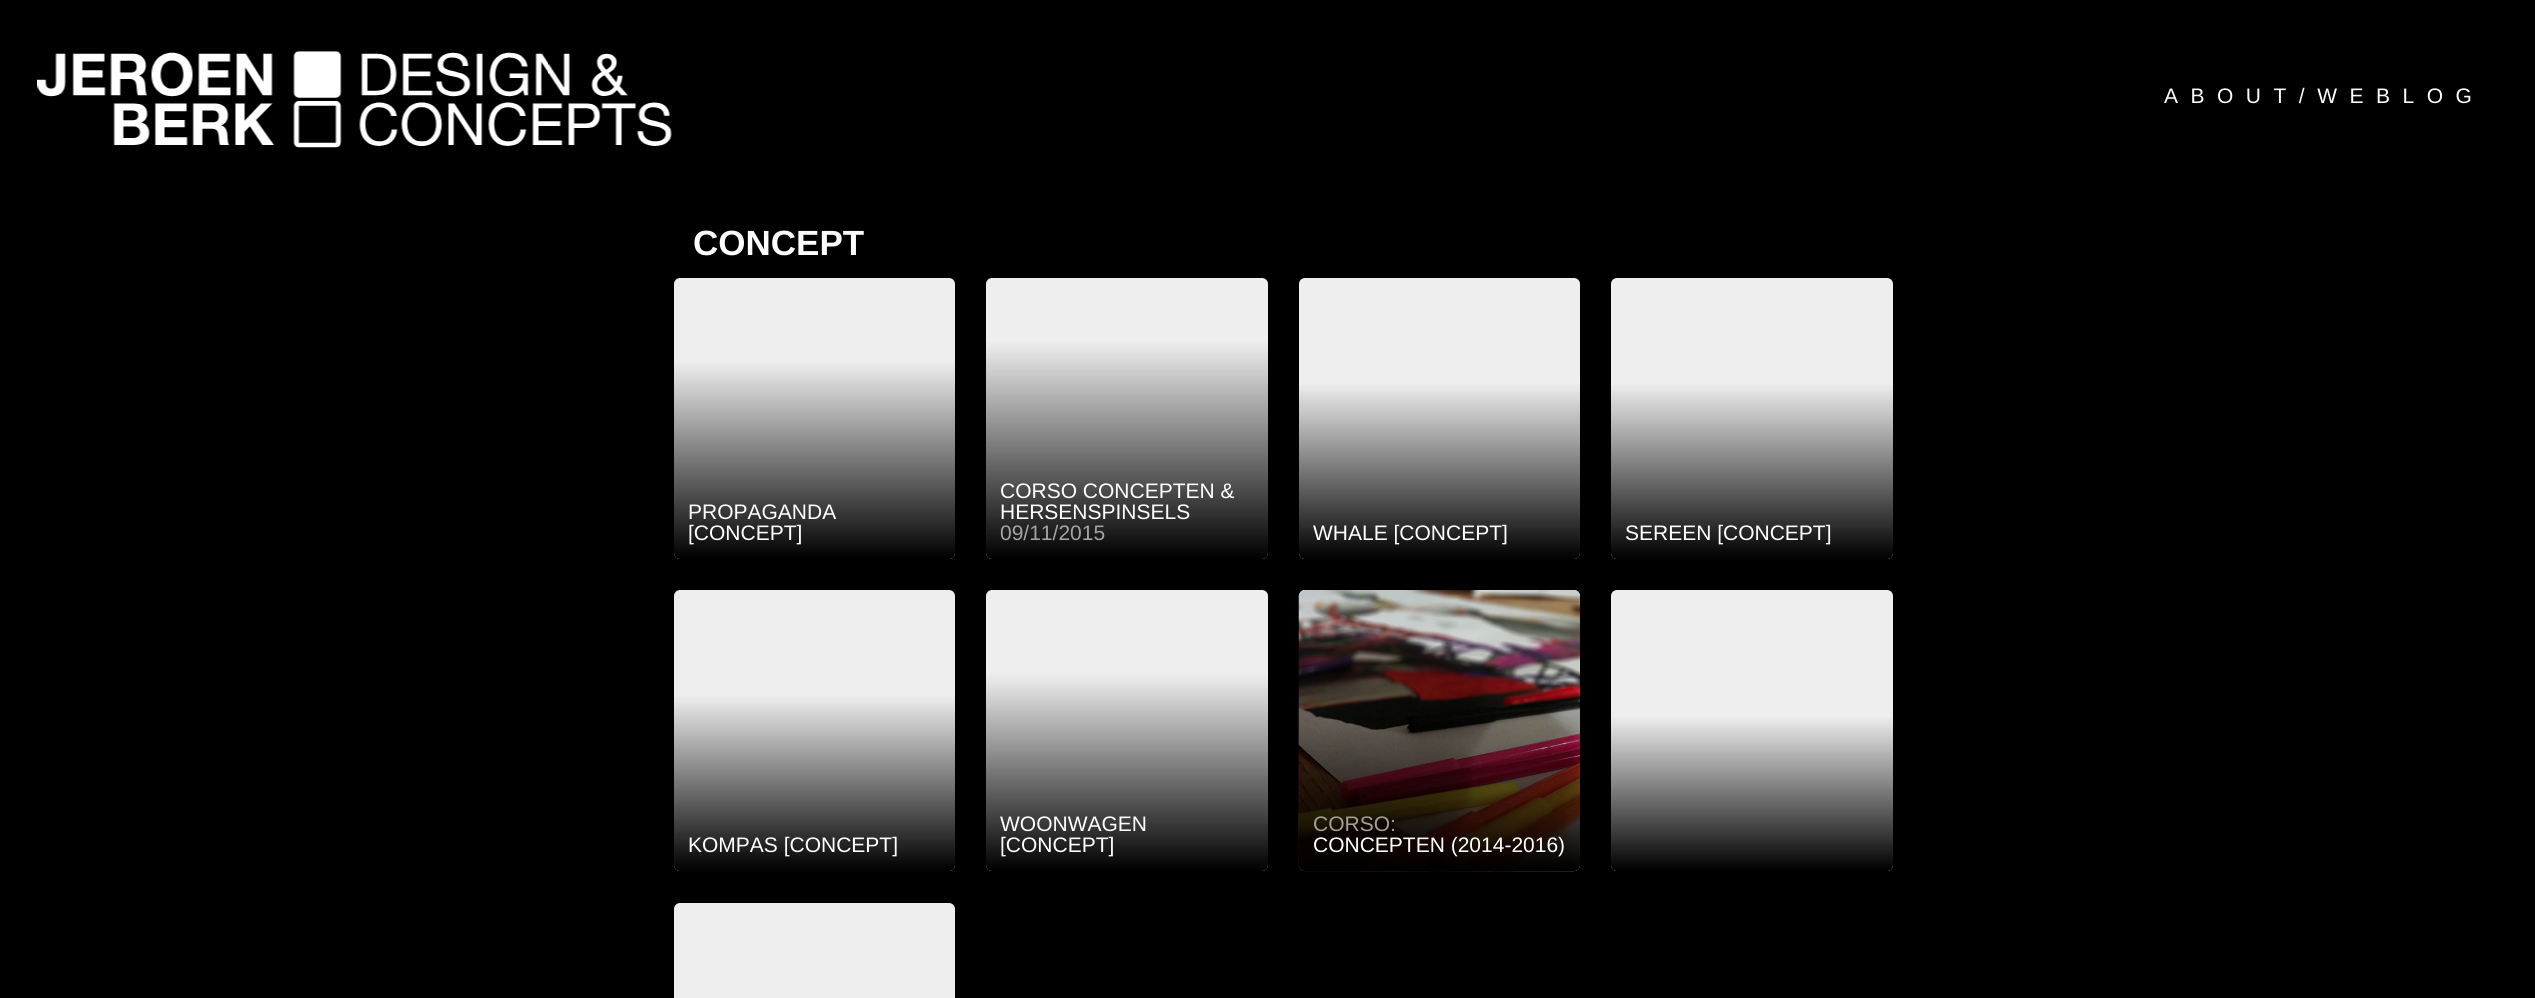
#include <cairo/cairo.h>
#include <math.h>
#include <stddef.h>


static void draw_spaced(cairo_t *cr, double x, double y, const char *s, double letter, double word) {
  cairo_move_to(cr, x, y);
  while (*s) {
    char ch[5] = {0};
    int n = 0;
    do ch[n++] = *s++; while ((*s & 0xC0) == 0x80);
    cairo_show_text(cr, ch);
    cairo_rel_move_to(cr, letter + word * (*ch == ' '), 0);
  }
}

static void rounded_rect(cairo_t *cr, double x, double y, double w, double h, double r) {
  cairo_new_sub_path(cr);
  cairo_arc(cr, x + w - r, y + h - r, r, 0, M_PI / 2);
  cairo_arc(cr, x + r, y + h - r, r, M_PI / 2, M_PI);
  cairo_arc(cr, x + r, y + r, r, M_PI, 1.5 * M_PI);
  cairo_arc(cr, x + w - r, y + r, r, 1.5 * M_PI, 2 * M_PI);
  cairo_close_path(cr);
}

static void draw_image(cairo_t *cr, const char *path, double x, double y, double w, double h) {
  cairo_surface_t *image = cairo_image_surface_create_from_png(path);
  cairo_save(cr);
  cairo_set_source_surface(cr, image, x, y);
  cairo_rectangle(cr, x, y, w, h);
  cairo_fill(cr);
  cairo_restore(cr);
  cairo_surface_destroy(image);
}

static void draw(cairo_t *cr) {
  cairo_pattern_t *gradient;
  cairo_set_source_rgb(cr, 0, 0, 0);
  cairo_paint(cr);
  draw_image(cr, "images/1.png", 37, 51, 635, 97);
  cairo_set_source_rgb(cr, 238 / 255.0, 238 / 255.0, 238 / 255.0);
  rounded_rect(cr, 674, 278, 281, 281, 6);
  cairo_fill(cr);
  gradient = cairo_pattern_create_linear(814, 559, 814, 361);
  cairo_pattern_add_color_stop_rgba(gradient, 0, 0, 0, 0, 1);
  cairo_pattern_add_color_stop_rgba(gradient, 1, 0, 0, 0, 0);
  cairo_set_source(cr, gradient);
  cairo_pattern_destroy(gradient);
  cairo_new_path(cr);
  cairo_move_to(cr, 674, 361);
  cairo_line_to(cr, 955, 361);
  cairo_line_to(cr, 955, 553);
  cairo_curve_to(cr, 955, 556.5, 952.5, 559, 949, 559);
  cairo_line_to(cr, 680, 559);
  cairo_curve_to(cr, 676.5, 559, 674, 556.5, 674, 553);
  cairo_close_path(cr);
  cairo_fill(cr);
  cairo_set_source_rgb(cr, 238 / 255.0, 238 / 255.0, 238 / 255.0);
  rounded_rect(cr, 986, 278, 282, 281, 6);
  cairo_fill(cr);
  gradient = cairo_pattern_create_linear(1127, 559, 1127, 341);
  cairo_pattern_add_color_stop_rgba(gradient, 0, 0, 0, 0, 1);
  cairo_pattern_add_color_stop_rgba(gradient, 1, 0, 0, 0, 0);
  cairo_set_source(cr, gradient);
  cairo_pattern_destroy(gradient);
  cairo_new_path(cr);
  cairo_move_to(cr, 986, 341);
  cairo_line_to(cr, 1268, 341);
  cairo_line_to(cr, 1268, 553);
  cairo_curve_to(cr, 1268, 556.5, 1265.5, 559, 1262, 559);
  cairo_line_to(cr, 992, 559);
  cairo_curve_to(cr, 988.5, 559, 986, 556.5, 986, 553);
  cairo_close_path(cr);
  cairo_fill(cr);
  cairo_set_source_rgb(cr, 238 / 255.0, 238 / 255.0, 238 / 255.0);
  rounded_rect(cr, 1299, 278, 281, 281, 6);
  cairo_fill(cr);
  gradient = cairo_pattern_create_linear(1439, 559, 1439, 383);
  cairo_pattern_add_color_stop_rgba(gradient, 0, 0, 0, 0, 1);
  cairo_pattern_add_color_stop_rgba(gradient, 1, 0, 0, 0, 0);
  cairo_set_source(cr, gradient);
  cairo_pattern_destroy(gradient);
  cairo_new_path(cr);
  cairo_move_to(cr, 1299, 383);
  cairo_line_to(cr, 1580, 383);
  cairo_line_to(cr, 1580, 553);
  cairo_curve_to(cr, 1580, 556.5, 1577.5, 559, 1574, 559);
  cairo_line_to(cr, 1305, 559);
  cairo_curve_to(cr, 1301.5, 559, 1299, 556.5, 1299, 553);
  cairo_close_path(cr);
  cairo_fill(cr);
  cairo_set_source_rgb(cr, 238 / 255.0, 238 / 255.0, 238 / 255.0);
  rounded_rect(cr, 1611, 278, 282, 281, 6);
  cairo_fill(cr);
  gradient = cairo_pattern_create_linear(1752, 559, 1752, 383);
  cairo_pattern_add_color_stop_rgba(gradient, 0, 0, 0, 0, 1);
  cairo_pattern_add_color_stop_rgba(gradient, 1, 0, 0, 0, 0);
  cairo_set_source(cr, gradient);
  cairo_pattern_destroy(gradient);
  cairo_new_path(cr);
  cairo_move_to(cr, 1611, 383);
  cairo_line_to(cr, 1893, 383);
  cairo_line_to(cr, 1893, 553);
  cairo_curve_to(cr, 1893, 556.5, 1890.5, 559, 1887, 559);
  cairo_line_to(cr, 1617, 559);
  cairo_curve_to(cr, 1613.5, 559, 1611, 556.5, 1611, 553);
  cairo_close_path(cr);
  cairo_fill(cr);
  cairo_set_source_rgb(cr, 238 / 255.0, 238 / 255.0, 238 / 255.0);
  rounded_rect(cr, 674, 590, 281, 281, 6);
  cairo_fill(cr);
  gradient = cairo_pattern_create_linear(814, 871, 814, 695);
  cairo_pattern_add_color_stop_rgba(gradient, 0, 0, 0, 0, 1);
  cairo_pattern_add_color_stop_rgba(gradient, 1, 0, 0, 0, 0);
  cairo_set_source(cr, gradient);
  cairo_pattern_destroy(gradient);
  cairo_new_path(cr);
  cairo_move_to(cr, 674, 695);
  cairo_line_to(cr, 955, 695);
  cairo_line_to(cr, 955, 865);
  cairo_curve_to(cr, 955, 868.5, 952.5, 871, 949, 871);
  cairo_line_to(cr, 680, 871);
  cairo_curve_to(cr, 676.5, 871, 674, 868.5, 674, 865);
  cairo_close_path(cr);
  cairo_fill(cr);
  cairo_set_source_rgb(cr, 238 / 255.0, 238 / 255.0, 238 / 255.0);
  rounded_rect(cr, 986, 590, 282, 281, 6);
  cairo_fill(cr);
  gradient = cairo_pattern_create_linear(1127, 871, 1127, 674);
  cairo_pattern_add_color_stop_rgba(gradient, 0, 0, 0, 0, 1);
  cairo_pattern_add_color_stop_rgba(gradient, 1, 0, 0, 0, 0);
  cairo_set_source(cr, gradient);
  cairo_pattern_destroy(gradient);
  cairo_new_path(cr);
  cairo_move_to(cr, 986, 674);
  cairo_line_to(cr, 1268, 674);
  cairo_line_to(cr, 1268, 865);
  cairo_curve_to(cr, 1268, 868.5, 1265.5, 871, 1262, 871);
  cairo_line_to(cr, 992, 871);
  cairo_curve_to(cr, 988.5, 871, 986, 868.5, 986, 865);
  cairo_close_path(cr);
  cairo_fill(cr);
  cairo_set_source_rgb(cr, 238 / 255.0, 238 / 255.0, 238 / 255.0);
  rounded_rect(cr, 1299, 590, 281, 281, 6);
  cairo_fill(cr);
  draw_image(cr, "images/2.png", 1298, 590, 282, 282);
  gradient = cairo_pattern_create_linear(1439, 871, 1439, 674);
  cairo_pattern_add_color_stop_rgba(gradient, 0, 0, 0, 0, 1);
  cairo_pattern_add_color_stop_rgba(gradient, 1, 0, 0, 0, 0);
  cairo_set_source(cr, gradient);
  cairo_pattern_destroy(gradient);
  cairo_new_path(cr);
  cairo_move_to(cr, 1299, 674);
  cairo_line_to(cr, 1580, 674);
  cairo_line_to(cr, 1580, 865);
  cairo_curve_to(cr, 1580, 868.5, 1577.5, 871, 1574, 871);
  cairo_line_to(cr, 1305, 871);
  cairo_curve_to(cr, 1301.5, 871, 1299, 868.5, 1299, 865);
  cairo_close_path(cr);
  cairo_fill(cr);
  cairo_set_source_rgb(cr, 238 / 255.0, 238 / 255.0, 238 / 255.0);
  rounded_rect(cr, 1611, 590, 282, 281, 6);
  cairo_fill(cr);
  gradient = cairo_pattern_create_linear(1752, 871, 1752, 716);
  cairo_pattern_add_color_stop_rgba(gradient, 0, 0, 0, 0, 1);
  cairo_pattern_add_color_stop_rgba(gradient, 1, 0, 0, 0, 0);
  cairo_set_source(cr, gradient);
  cairo_pattern_destroy(gradient);
  cairo_new_path(cr);
  cairo_move_to(cr, 1611, 716);
  cairo_line_to(cr, 1893, 716);
  cairo_line_to(cr, 1893, 865);
  cairo_curve_to(cr, 1893, 868.5, 1890.5, 871, 1887, 871);
  cairo_line_to(cr, 1617, 871);
  cairo_curve_to(cr, 1613.5, 871, 1611, 868.5, 1611, 865);
  cairo_close_path(cr);
  cairo_fill(cr);
  cairo_set_source_rgb(cr, 238 / 255.0, 238 / 255.0, 238 / 255.0);
  rounded_rect(cr, 674, 903, 281, 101, 6);
  cairo_fill(cr);
  cairo_select_font_face(cr, "Liberation Sans", CAIRO_FONT_SLANT_NORMAL, CAIRO_FONT_WEIGHT_NORMAL);
  cairo_set_font_size(cr, 21);
  cairo_set_source_rgb(cr, 1, 1, 1);
  draw_spaced(cr, 2164, 103, "ABOUT/WEBLOG", 12.5, 0);
  cairo_select_font_face(cr, "Liberation Sans", CAIRO_FONT_SLANT_NORMAL, CAIRO_FONT_WEIGHT_BOLD);
  cairo_set_font_size(cr, 35);
  cairo_move_to(cr, 693, 255);
  cairo_show_text(cr, "CONCEPT");
  gradient = cairo_pattern_create_linear(1268, 0, 1268, 254);
  cairo_pattern_add_color_stop_rgba(gradient, 0, 0, 0, 0, 0.3);
  cairo_pattern_add_color_stop_rgba(gradient, 1, 0, 0, 0, 0);
  cairo_set_source(cr, gradient);
  cairo_pattern_destroy(gradient);
  cairo_rectangle(cr, 696, 230, 168, 6);
  cairo_fill(cr);
  cairo_select_font_face(cr, "Liberation Sans", CAIRO_FONT_SLANT_NORMAL, CAIRO_FONT_WEIGHT_NORMAL);
  cairo_set_font_size(cr, 21);
  cairo_set_source_rgb(cr, 1, 1, 1);
  cairo_move_to(cr, 688, 519);
  cairo_show_text(cr, "PROPAGANDA");
  cairo_move_to(cr, 688, 540);
  cairo_show_text(cr, "[CONCEPT]");
  cairo_move_to(cr, 1000, 498);
  cairo_show_text(cr, "CORSO CONCEPTEN &");
  cairo_move_to(cr, 1000, 519);
  cairo_show_text(cr, "HERSENSPINSELS");
  cairo_set_source_rgb(cr, 164 / 255.0, 164 / 255.0, 164 / 255.0);
  cairo_move_to(cr, 1000, 540);
  cairo_show_text(cr, "09/11/2015");
  cairo_set_source_rgb(cr, 1, 1, 1);
  cairo_move_to(cr, 1313, 540);
  cairo_show_text(cr, "WHALE [CONCEPT]");
  cairo_move_to(cr, 1625, 540);
  cairo_show_text(cr, "SEREEN [CONCEPT]");
  cairo_move_to(cr, 688, 852);
  cairo_show_text(cr, "KOMPAS [CONCEPT]");
  cairo_move_to(cr, 1000, 831);
  cairo_show_text(cr, "WOONWAGEN");
  cairo_move_to(cr, 1000, 852);
  cairo_show_text(cr, "[CONCEPT]");
  cairo_set_source_rgb(cr, 162 / 255.0, 159 / 255.0, 154 / 255.0);
  cairo_move_to(cr, 1313, 831);
  cairo_show_text(cr, "CORSO:");
  cairo_set_source_rgb(cr, 1, 1, 1);
  cairo_move_to(cr, 1313, 852);
  cairo_show_text(cr, "CONCEPTEN (2014-2016)");
}

int main(void) {
  cairo_surface_t *surface = cairo_image_surface_create(CAIRO_FORMAT_RGB24, 2535, 998);
  cairo_t *cr = cairo_create(surface);
  cairo_font_options_t *options = cairo_font_options_create();
  cairo_font_options_set_hint_metrics(options, CAIRO_HINT_METRICS_OFF);
  cairo_font_options_set_hint_style(options, CAIRO_HINT_STYLE_NONE);
  cairo_set_font_options(cr, options);
  cairo_set_miter_limit(cr, 4);
  draw(cr);
  cairo_surface_write_to_png(surface, "out.png");
  cairo_font_options_destroy(options);
  cairo_destroy(cr);
  cairo_surface_destroy(surface);
  return 0;
}
